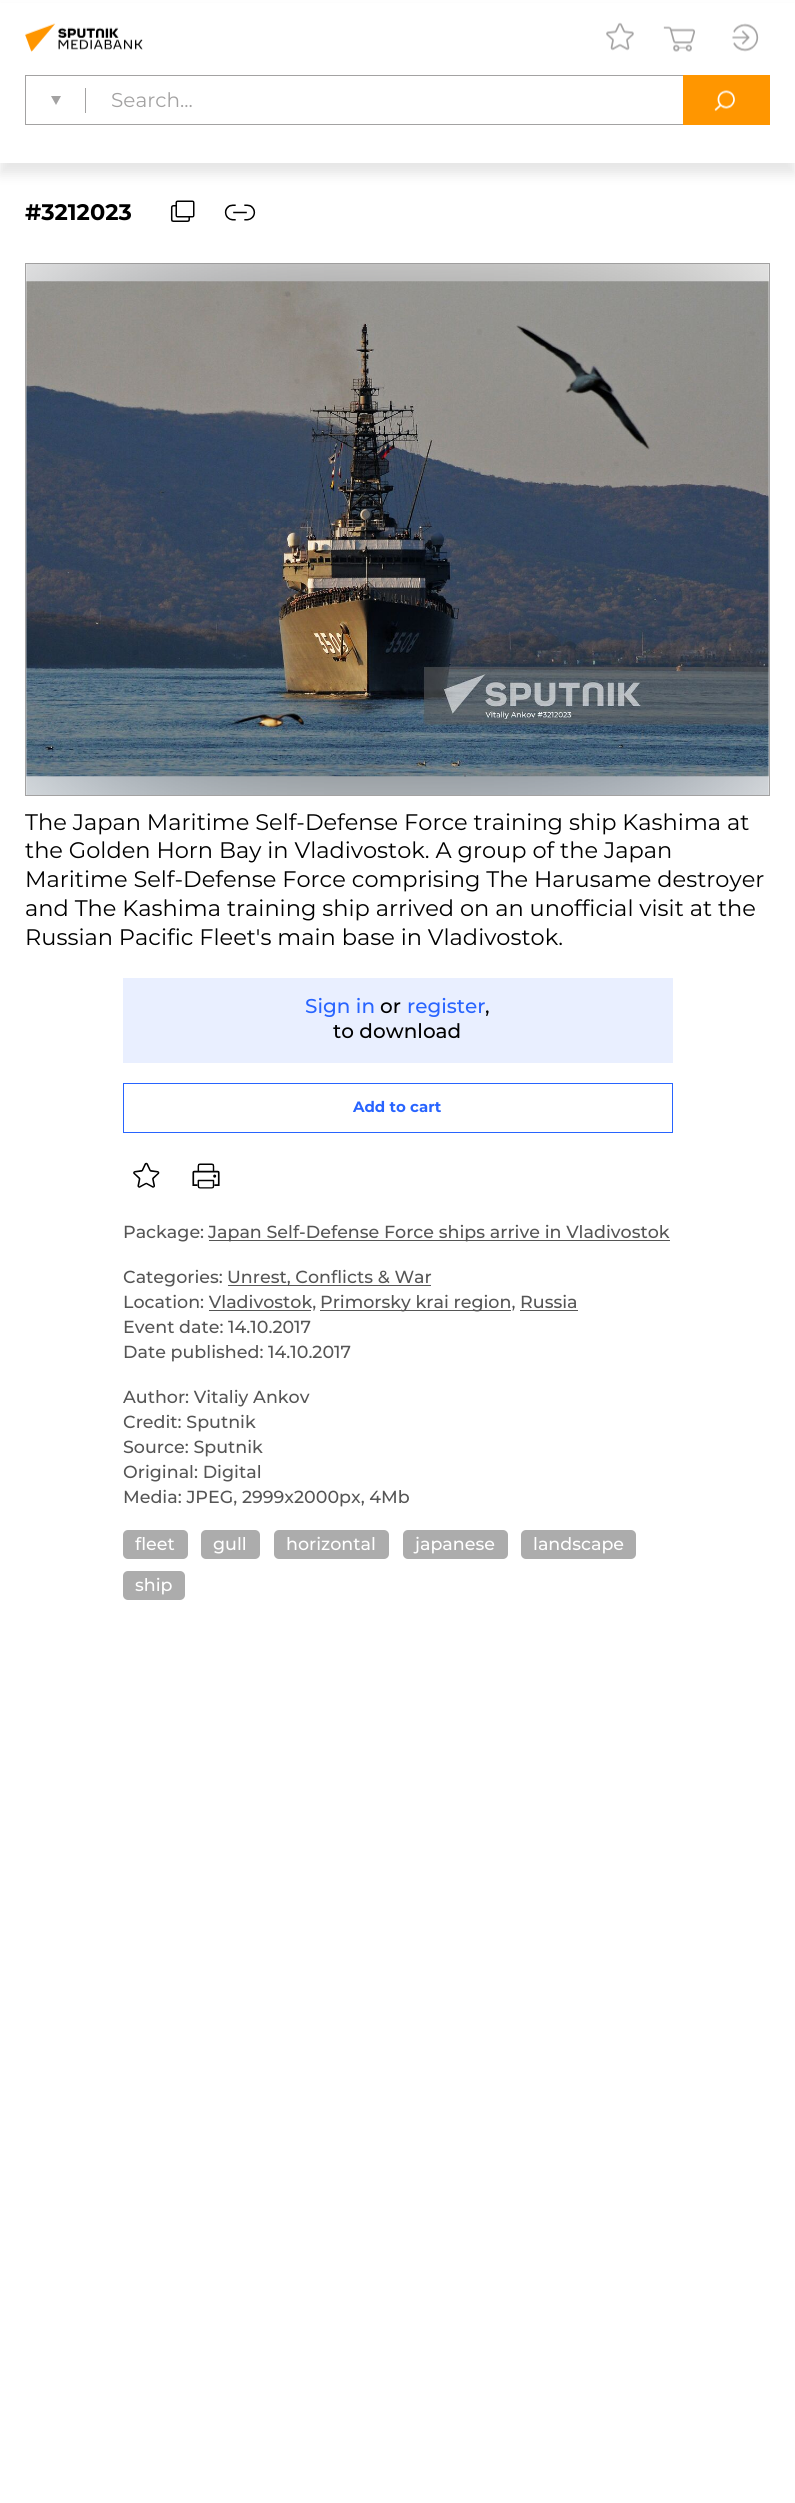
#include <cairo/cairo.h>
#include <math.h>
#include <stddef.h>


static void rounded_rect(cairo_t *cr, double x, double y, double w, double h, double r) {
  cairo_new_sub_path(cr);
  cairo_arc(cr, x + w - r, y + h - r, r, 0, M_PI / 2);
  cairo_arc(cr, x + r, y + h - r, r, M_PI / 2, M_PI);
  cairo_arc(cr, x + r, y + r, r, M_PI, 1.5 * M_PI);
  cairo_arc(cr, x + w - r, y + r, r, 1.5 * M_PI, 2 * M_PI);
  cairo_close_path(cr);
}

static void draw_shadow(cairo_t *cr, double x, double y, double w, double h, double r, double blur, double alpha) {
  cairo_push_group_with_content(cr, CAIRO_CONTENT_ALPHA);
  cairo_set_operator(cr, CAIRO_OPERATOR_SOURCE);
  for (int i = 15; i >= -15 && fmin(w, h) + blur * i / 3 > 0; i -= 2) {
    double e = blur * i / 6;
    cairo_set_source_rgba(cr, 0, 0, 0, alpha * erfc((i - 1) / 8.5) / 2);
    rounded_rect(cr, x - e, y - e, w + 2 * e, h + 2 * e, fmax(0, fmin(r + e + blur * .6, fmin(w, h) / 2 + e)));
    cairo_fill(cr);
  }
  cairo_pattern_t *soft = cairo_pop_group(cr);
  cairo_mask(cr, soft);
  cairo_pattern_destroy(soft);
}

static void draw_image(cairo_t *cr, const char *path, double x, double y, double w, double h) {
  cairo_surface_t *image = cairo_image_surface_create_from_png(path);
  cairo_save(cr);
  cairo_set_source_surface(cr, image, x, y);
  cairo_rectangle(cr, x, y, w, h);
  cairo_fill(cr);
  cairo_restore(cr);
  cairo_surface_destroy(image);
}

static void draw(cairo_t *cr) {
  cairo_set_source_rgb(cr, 1, 1, 1);
  cairo_paint(cr);
  cairo_set_source_rgb(cr, 0, 0, 0);
  draw_shadow(cr, 0, 11, 795, 163, 0, 6, 0.1);
  cairo_set_source_rgb(cr, 1, 1, 1);
  cairo_rectangle(cr, 0, 3, 795, 160);
  cairo_fill(cr);
  draw_image(cr, "images/1.png", 25, 23, 118, 29);
  draw_image(cr, "images/2.png", 606, 22, 28, 29);
  draw_image(cr, "images/3.png", 663, 26, 32, 26);
  draw_image(cr, "images/4.png", 732, 23, 27, 29);
  cairo_set_source_rgb(cr, 163 / 255.0, 162 / 255.0, 162 / 255.0);
  cairo_rectangle(cr, 25, 75, 658, 1);
  cairo_fill(cr);
  cairo_rectangle(cr, 25, 124, 658, 1);
  cairo_fill(cr);
  cairo_rectangle(cr, 25, 75, 1, 50);
  cairo_fill(cr);
  cairo_new_path(cr);
  cairo_move_to(cr, 51, 96);
  cairo_line_to(cr, 61, 96);
  cairo_line_to(cr, 56, 105);
  cairo_close_path(cr);
  cairo_fill(cr);
  cairo_rectangle(cr, 85, 88, 1, 25);
  cairo_fill(cr);
  cairo_set_source_rgb(cr, 1, 150 / 255.0, 0);
  cairo_rectangle(cr, 683, 75, 87, 50);
  cairo_fill(cr);
  draw_image(cr, "images/5.png", 714, 90, 21, 22);
  draw_image(cr, "images/6.png", 170, 200, 25, 22);
  draw_image(cr, "images/7.png", 224, 204, 32, 17);
  cairo_rectangle(cr, 25.5, 263.5, 744, 532);
  cairo_set_source_rgb(cr, 163 / 255.0, 162 / 255.0, 162 / 255.0);
  cairo_set_line_width(cr, 1);
  cairo_stroke(cr);
  draw_image(cr, "images/8.png", 26, 263, 743, 532);
  draw_image(cr, "images/9.png", 26, 281, 743, 496);
  cairo_set_source_rgb(cr, 233 / 255.0, 239 / 255.0, 1);
  cairo_rectangle(cr, 123, 978, 550, 85);
  cairo_fill(cr);
  cairo_rectangle(cr, 123.5, 1083.5, 549, 49);
  cairo_set_source_rgb(cr, 40 / 255.0, 100 / 255.0, 1);
  cairo_stroke(cr);
  draw_image(cr, "images/10.png", 133, 1162, 27, 26);
  draw_image(cr, "images/11.png", 192, 1163, 28, 26);
  cairo_set_source_rgb(cr, 85 / 255.0, 85 / 255.0, 85 / 255.0);
  cairo_rectangle(cr, 209, 1240, 461, 1);
  cairo_fill(cr);
  cairo_rectangle(cr, 228, 1285, 203, 1);
  cairo_fill(cr);
  cairo_rectangle(cr, 320, 1310, 191, 1);
  cairo_fill(cr);
  cairo_rectangle(cr, 209, 1310, 102, 1);
  cairo_fill(cr);
  cairo_rectangle(cr, 520, 1310, 58, 1);
  cairo_fill(cr);
  cairo_set_source_rgb(cr, 172 / 255.0, 172 / 255.0, 172 / 255.0);
  rounded_rect(cr, 123, 1530, 65, 29, 5);
  cairo_fill(cr);
  rounded_rect(cr, 201, 1530, 59, 29, 5);
  cairo_fill(cr);
  rounded_rect(cr, 274, 1530, 115, 29, 5);
  cairo_fill(cr);
  rounded_rect(cr, 403, 1530, 105, 29, 5);
  cairo_fill(cr);
  rounded_rect(cr, 521, 1530, 115, 29, 5);
  cairo_fill(cr);
  rounded_rect(cr, 123, 1571, 62, 29, 5);
  cairo_fill(cr);
  cairo_select_font_face(cr, "Montserrat", CAIRO_FONT_SLANT_NORMAL, CAIRO_FONT_WEIGHT_NORMAL);
  cairo_set_font_size(cr, 20);
  cairo_set_source_rgb(cr, 163 / 255.0, 162 / 255.0, 162 / 255.0);
  cairo_move_to(cr, 111, 107);
  cairo_show_text(cr, "Search...");
  cairo_select_font_face(cr, "Montserrat", CAIRO_FONT_SLANT_NORMAL, CAIRO_FONT_WEIGHT_BOLD);
  cairo_set_font_size(cr, 22.5);
  cairo_set_source_rgb(cr, 0, 0, 0);
  cairo_move_to(cr, 25, 220);
  cairo_show_text(cr, "#3212023");
  cairo_select_font_face(cr, "Montserrat", CAIRO_FONT_SLANT_NORMAL, CAIRO_FONT_WEIGHT_NORMAL);
  cairo_move_to(cr, 25, 830);
  cairo_show_text(cr, "The Japan Maritime Self-Defense Force training ship Kashima at");
  cairo_move_to(cr, 25, 858);
  cairo_show_text(cr, "the Golden Horn Bay in Vladivostok. A group of the Japan");
  cairo_move_to(cr, 25, 887);
  cairo_show_text(cr, "Maritime Self-Defense Force comprising The Harusame destroyer");
  cairo_move_to(cr, 25, 916);
  cairo_show_text(cr, "and The Kashima training ship arrived on an unofficial visit at the");
  cairo_move_to(cr, 25, 945);
  cairo_show_text(cr, "Russian Pacific Fleet's main base in Vladivostok.");
  cairo_select_font_face(cr, "Montserrat Medium", CAIRO_FONT_SLANT_NORMAL, CAIRO_FONT_WEIGHT_NORMAL);
  cairo_set_font_size(cr, 20);
  cairo_set_source_rgb(cr, 40 / 255.0, 100 / 255.0, 1);
  cairo_move_to(cr, 305, 1013);
  cairo_show_text(cr, "Sign in");
  cairo_set_source_rgb(cr, 0, 0, 0);
  cairo_move_to(cr, 380, 1013);
  cairo_show_text(cr, "or");
  cairo_set_source_rgb(cr, 40 / 255.0, 100 / 255.0, 1);
  cairo_move_to(cr, 407, 1013);
  cairo_show_text(cr, "register");
  cairo_set_source_rgb(cr, 0, 0, 0);
  cairo_move_to(cr, 485, 1013);
  cairo_show_text(cr, ",");
  cairo_move_to(cr, 333, 1038);
  cairo_show_text(cr, "to download");
  cairo_select_font_face(cr, "Montserrat", CAIRO_FONT_SLANT_NORMAL, CAIRO_FONT_WEIGHT_BOLD);
  cairo_set_font_size(cr, 15);
  cairo_set_source_rgb(cr, 40 / 255.0, 100 / 255.0, 1);
  cairo_move_to(cr, 353, 1112);
  cairo_show_text(cr, "Add to cart");
  cairo_select_font_face(cr, "Montserrat Medium", CAIRO_FONT_SLANT_NORMAL, CAIRO_FONT_WEIGHT_NORMAL);
  cairo_set_font_size(cr, 17.5);
  cairo_set_source_rgb(cr, 85 / 255.0, 85 / 255.0, 85 / 255.0);
  cairo_move_to(cr, 123, 1238);
  cairo_show_text(cr, "Package:");
  cairo_move_to(cr, 208, 1238);
  cairo_show_text(cr, "Japan Self-Defense Force ships arrive in Vladivostok");
  cairo_move_to(cr, 123, 1283);
  cairo_show_text(cr, "Categories:");
  cairo_move_to(cr, 227, 1283);
  cairo_show_text(cr, "Unrest, Conflicts & War");
  cairo_move_to(cr, 123, 1308);
  cairo_show_text(cr, "Location: Vladivostok,");
  cairo_move_to(cr, 320, 1308);
  cairo_show_text(cr, "Primorsky krai region, Russia");
  cairo_move_to(cr, 123, 1333);
  cairo_show_text(cr, "Event date: 14.10.2017");
  cairo_move_to(cr, 123, 1358);
  cairo_show_text(cr, "Date published: 14.10.2017");
  cairo_move_to(cr, 123, 1403);
  cairo_show_text(cr, "Author: Vitaliy Ankov");
  cairo_move_to(cr, 123, 1428);
  cairo_show_text(cr, "Credit: Sputnik");
  cairo_move_to(cr, 123, 1453);
  cairo_show_text(cr, "Source: Sputnik");
  cairo_move_to(cr, 123, 1478);
  cairo_show_text(cr, "Original: Digital");
  cairo_move_to(cr, 123, 1503);
  cairo_show_text(cr, "Media: JPEG, 2999x2000px, 4Mb");
  cairo_set_source_rgb(cr, 1, 1, 1);
  cairo_move_to(cr, 135, 1550);
  cairo_show_text(cr, "fleet");
  cairo_move_to(cr, 213, 1550);
  cairo_show_text(cr, "gull");
  cairo_move_to(cr, 286, 1550);
  cairo_show_text(cr, "horizontal");
  cairo_move_to(cr, 415, 1550);
  cairo_show_text(cr, "japanese");
  cairo_move_to(cr, 533, 1550);
  cairo_show_text(cr, "landscape");
  cairo_move_to(cr, 135, 1591);
  cairo_show_text(cr, "ship");
}

int main(void) {
  cairo_surface_t *surface = cairo_image_surface_create(CAIRO_FORMAT_RGB24, 795, 2503);
  cairo_t *cr = cairo_create(surface);
  cairo_font_options_t *options = cairo_font_options_create();
  cairo_font_options_set_hint_metrics(options, CAIRO_HINT_METRICS_OFF);
  cairo_font_options_set_hint_style(options, CAIRO_HINT_STYLE_NONE);
  cairo_set_font_options(cr, options);
  cairo_set_miter_limit(cr, 4);
  draw(cr);
  cairo_surface_write_to_png(surface, "out.png");
  cairo_font_options_destroy(options);
  cairo_destroy(cr);
  cairo_surface_destroy(surface);
  return 0;
}
